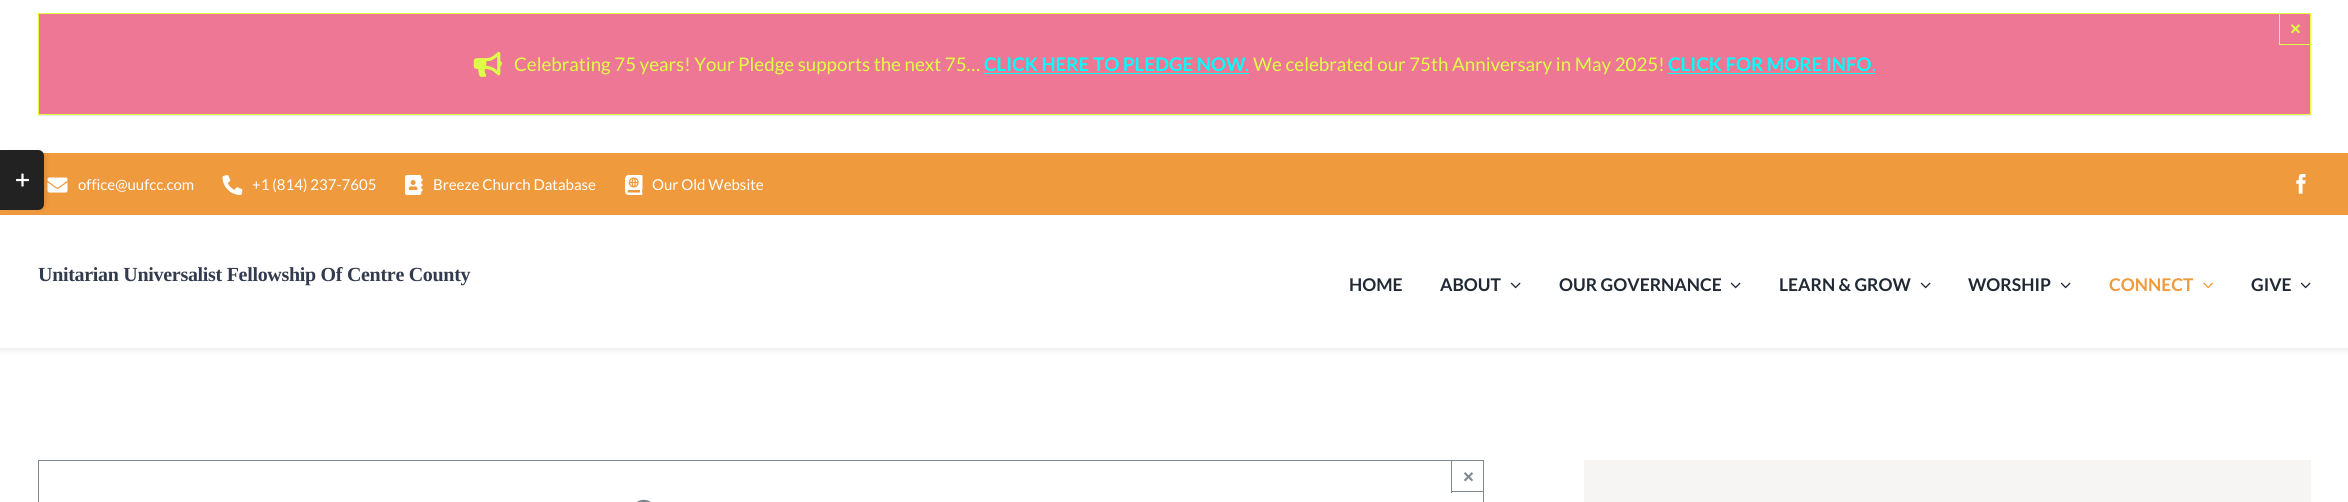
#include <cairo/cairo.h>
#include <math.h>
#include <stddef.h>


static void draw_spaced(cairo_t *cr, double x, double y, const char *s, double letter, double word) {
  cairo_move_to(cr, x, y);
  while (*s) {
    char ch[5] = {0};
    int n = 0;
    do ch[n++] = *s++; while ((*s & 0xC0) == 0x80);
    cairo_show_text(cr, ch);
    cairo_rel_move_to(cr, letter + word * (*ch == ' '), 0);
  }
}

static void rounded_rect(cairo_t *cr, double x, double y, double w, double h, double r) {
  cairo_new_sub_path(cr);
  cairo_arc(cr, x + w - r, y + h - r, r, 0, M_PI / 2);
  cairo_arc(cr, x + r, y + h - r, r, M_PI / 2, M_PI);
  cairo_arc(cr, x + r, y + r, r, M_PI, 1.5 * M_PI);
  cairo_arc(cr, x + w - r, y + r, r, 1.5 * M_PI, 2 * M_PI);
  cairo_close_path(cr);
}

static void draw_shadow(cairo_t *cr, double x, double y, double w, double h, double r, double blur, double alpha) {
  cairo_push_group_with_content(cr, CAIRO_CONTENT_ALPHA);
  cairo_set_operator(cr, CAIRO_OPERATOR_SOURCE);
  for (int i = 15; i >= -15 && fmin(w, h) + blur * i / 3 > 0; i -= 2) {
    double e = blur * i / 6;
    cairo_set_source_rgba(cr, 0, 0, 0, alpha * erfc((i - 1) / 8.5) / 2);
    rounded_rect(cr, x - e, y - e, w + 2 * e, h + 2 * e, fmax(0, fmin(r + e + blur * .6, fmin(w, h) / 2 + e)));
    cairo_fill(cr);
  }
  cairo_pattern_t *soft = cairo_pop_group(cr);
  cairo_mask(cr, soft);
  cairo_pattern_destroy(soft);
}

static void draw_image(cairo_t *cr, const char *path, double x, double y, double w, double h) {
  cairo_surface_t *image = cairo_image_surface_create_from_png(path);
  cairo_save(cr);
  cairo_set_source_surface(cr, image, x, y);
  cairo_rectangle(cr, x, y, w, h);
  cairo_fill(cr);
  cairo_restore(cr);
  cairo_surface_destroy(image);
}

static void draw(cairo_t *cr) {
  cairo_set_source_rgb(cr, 1, 1, 1);
  cairo_paint(cr);
  cairo_set_source_rgb(cr, 240 / 255.0, 154 / 255.0, 62 / 255.0);
  cairo_rectangle(cr, 0, 153, 2348, 62);
  cairo_fill(cr);
  draw_image(cr, "images/3.png", 47, 177, 21, 16);
  cairo_set_source_rgb(cr, 33 / 255.0, 33 / 255.0, 33 / 255.0);
  draw_shadow(cr, 0, 218, 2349, 132, 0, 3, 0.1);
  cairo_set_source_rgb(cr, 1, 1, 1);
  cairo_rectangle(cr, 0, 215, 2348, 133);
  cairo_fill(cr);
  cairo_set_source_rgb(cr, 0, 0, 0);
  draw_shadow(cr, 6, 153, 39, 55, 4, 3, 0.14);
  cairo_set_source_rgb(cr, 34 / 255.0, 34 / 255.0, 34 / 255.0);
  cairo_new_path(cr);
  cairo_move_to(cr, 0, 150);
  cairo_line_to(cr, 38, 150);
  cairo_curve_to(cr, 41.5, 150, 44, 152.5, 44, 156);
  cairo_line_to(cr, 44, 204);
  cairo_curve_to(cr, 44, 207.5, 41.5, 210, 38, 210);
  cairo_line_to(cr, 0, 210);
  cairo_close_path(cr);
  cairo_fill(cr);
  draw_image(cr, "images/1.png", 16, 173, 13, 14);
  cairo_set_source_rgb(cr, 0, 0, 0);
  draw_shadow(cr, 38, 14, 2273, 102, 0, 0.5, 0.1);
  cairo_set_source_rgb(cr, 237 / 255.0, 119 / 255.0, 149 / 255.0);
  cairo_rectangle(cr, 38.5, 13.5, 2272, 101);
  cairo_fill_preserve(cr);
  cairo_set_source_rgb(cr, 223 / 255.0, 1, 68 / 255.0);
  cairo_set_line_width(cr, 1);
  cairo_stroke(cr);
  cairo_rectangle(cr, 2279, 44, 32, 1);
  cairo_fill(cr);
  cairo_rectangle(cr, 2279, 13, 1, 32);
  cairo_fill(cr);
  draw_image(cr, "images/2.png", 473, 51, 29, 26);
  cairo_set_source_rgb(cr, 0, 1, 1);
  cairo_rectangle(cr, 984, 73, 265, 1);
  cairo_fill(cr);
  cairo_rectangle(cr, 1668, 73, 207, 1);
  cairo_fill(cr);
  draw_image(cr, "images/4.png", 222, 175, 21, 20);
  draw_image(cr, "images/5.png", 405, 175, 18, 20);
  draw_image(cr, "images/6.png", 625, 175, 18, 20);
  draw_image(cr, "images/7.png", 2296, 174, 10, 20);
  draw_image(cr, "images/8.png", 1510, 282, 11, 7);
  draw_image(cr, "images/8.png", 1730, 282, 11, 7);
  draw_image(cr, "images/8.png", 1920, 282, 11, 7);
  draw_image(cr, "images/8.png", 2060, 282, 11, 7);
  draw_image(cr, "images/9.png", 2203, 282, 10, 7);
  draw_image(cr, "images/8.png", 2300, 282, 11, 7);
  cairo_rectangle(cr, 38.5, 460.5, 1445, 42);
  cairo_set_source_rgb(cr, 126 / 255.0, 136 / 255.0, 144 / 255.0);
  cairo_stroke(cr);
  cairo_rectangle(cr, 1451, 491, 33, 1);
  cairo_fill(cr);
  cairo_rectangle(cr, 1451, 460, 1, 33);
  cairo_fill(cr);
  draw_image(cr, "images/10.png", 637, 499, 14, 3);
  cairo_set_source_rgb(cr, 247 / 255.0, 245 / 255.0, 244 / 255.0);
  cairo_rectangle(cr, 1584, 460, 727, 42);
  cairo_fill(cr);
  cairo_select_font_face(cr, "Liberation Sans", CAIRO_FONT_SLANT_NORMAL, CAIRO_FONT_WEIGHT_BOLD);
  cairo_set_font_size(cr, 18.75);
  cairo_set_source_rgb(cr, 223 / 255.0, 1, 68 / 255.0);
  cairo_move_to(cr, 2290, 35);
  cairo_show_text(cr, "×");
  cairo_select_font_face(cr, "Lato", CAIRO_FONT_SLANT_NORMAL, CAIRO_FONT_WEIGHT_NORMAL);
  cairo_move_to(cr, 514, 71);
  cairo_show_text(cr, "Celebrating 75 years! Your Pledge supports the next 75…");
  cairo_select_font_face(cr, "Lato", CAIRO_FONT_SLANT_NORMAL, CAIRO_FONT_WEIGHT_BOLD);
  cairo_set_source_rgb(cr, 0, 1, 1);
  cairo_move_to(cr, 984, 71);
  cairo_show_text(cr, "CLICK HERE TO PLEDGE NOW");
  cairo_select_font_face(cr, "Lato", CAIRO_FONT_SLANT_NORMAL, CAIRO_FONT_WEIGHT_NORMAL);
  cairo_move_to(cr, 1245, 71);
  cairo_show_text(cr, ".");
  cairo_set_source_rgb(cr, 223 / 255.0, 1, 68 / 255.0);
  cairo_move_to(cr, 1253, 71);
  cairo_show_text(cr, "We celebrated our 75th Anniversary in May 2025!");
  cairo_select_font_face(cr, "Lato", CAIRO_FONT_SLANT_NORMAL, CAIRO_FONT_WEIGHT_BOLD);
  cairo_set_source_rgb(cr, 0, 1, 1);
  cairo_move_to(cr, 1668, 71);
  cairo_show_text(cr, "CLICK FOR MORE INFO");
  cairo_select_font_face(cr, "Lato", CAIRO_FONT_SLANT_NORMAL, CAIRO_FONT_WEIGHT_NORMAL);
  cairo_move_to(cr, 1872, 71);
  cairo_show_text(cr, ".");
  cairo_set_font_size(cr, 15);
  cairo_set_source_rgb(cr, 1, 1, 1);
  cairo_move_to(cr, 78, 190);
  cairo_show_text(cr, "office@uufcc.com");
  cairo_move_to(cr, 252, 190);
  cairo_show_text(cr, "+1 (814) 237-7605");
  cairo_move_to(cr, 433, 190);
  cairo_show_text(cr, "Breeze Church Database");
  cairo_move_to(cr, 652, 190);
  cairo_show_text(cr, "Our Old Website");
  cairo_select_font_face(cr, "Liberation Serif", CAIRO_FONT_SLANT_NORMAL, CAIRO_FONT_WEIGHT_BOLD);
  cairo_set_font_size(cr, 20);
  cairo_set_source_rgb(cr, 51 / 255.0, 60 / 255.0, 78 / 255.0);
  draw_spaced(cr, 38, 281, "Unitarian Universalist Fellowship Of Centre County", -0.3, 0);
  cairo_select_font_face(cr, "Lato", CAIRO_FONT_SLANT_NORMAL, CAIRO_FONT_WEIGHT_BOLD);
  cairo_set_font_size(cr, 17.5);
  cairo_set_source_rgb(cr, 33 / 255.0, 41 / 255.0, 52 / 255.0);
  cairo_move_to(cr, 1349, 291);
  cairo_show_text(cr, "HOME");
  cairo_move_to(cr, 1440, 291);
  cairo_show_text(cr, "ABOUT");
  cairo_move_to(cr, 1559, 291);
  cairo_show_text(cr, "OUR GOVERNANCE");
  cairo_move_to(cr, 1779, 291);
  cairo_show_text(cr, "LEARN & GROW");
  cairo_move_to(cr, 1968, 291);
  cairo_show_text(cr, "WORSHIP");
  cairo_set_source_rgb(cr, 240 / 255.0, 154 / 255.0, 62 / 255.0);
  cairo_move_to(cr, 2109, 291);
  cairo_show_text(cr, "CONNECT");
  cairo_set_source_rgb(cr, 33 / 255.0, 41 / 255.0, 52 / 255.0);
  cairo_move_to(cr, 2251, 291);
  cairo_show_text(cr, "GIVE");
  cairo_select_font_face(cr, "Liberation Sans", CAIRO_FONT_SLANT_NORMAL, CAIRO_FONT_WEIGHT_BOLD);
  cairo_set_font_size(cr, 18.75);
  cairo_set_source_rgb(cr, 126 / 255.0, 136 / 255.0, 144 / 255.0);
  cairo_move_to(cr, 1463, 483);
  cairo_show_text(cr, "×");
}

int main(void) {
  cairo_surface_t *surface = cairo_image_surface_create(CAIRO_FORMAT_RGB24, 2348, 502);
  cairo_t *cr = cairo_create(surface);
  cairo_font_options_t *options = cairo_font_options_create();
  cairo_font_options_set_hint_metrics(options, CAIRO_HINT_METRICS_OFF);
  cairo_font_options_set_hint_style(options, CAIRO_HINT_STYLE_NONE);
  cairo_set_font_options(cr, options);
  cairo_set_miter_limit(cr, 4);
  draw(cr);
  cairo_surface_write_to_png(surface, "out.png");
  cairo_font_options_destroy(options);
  cairo_destroy(cr);
  cairo_surface_destroy(surface);
  return 0;
}
